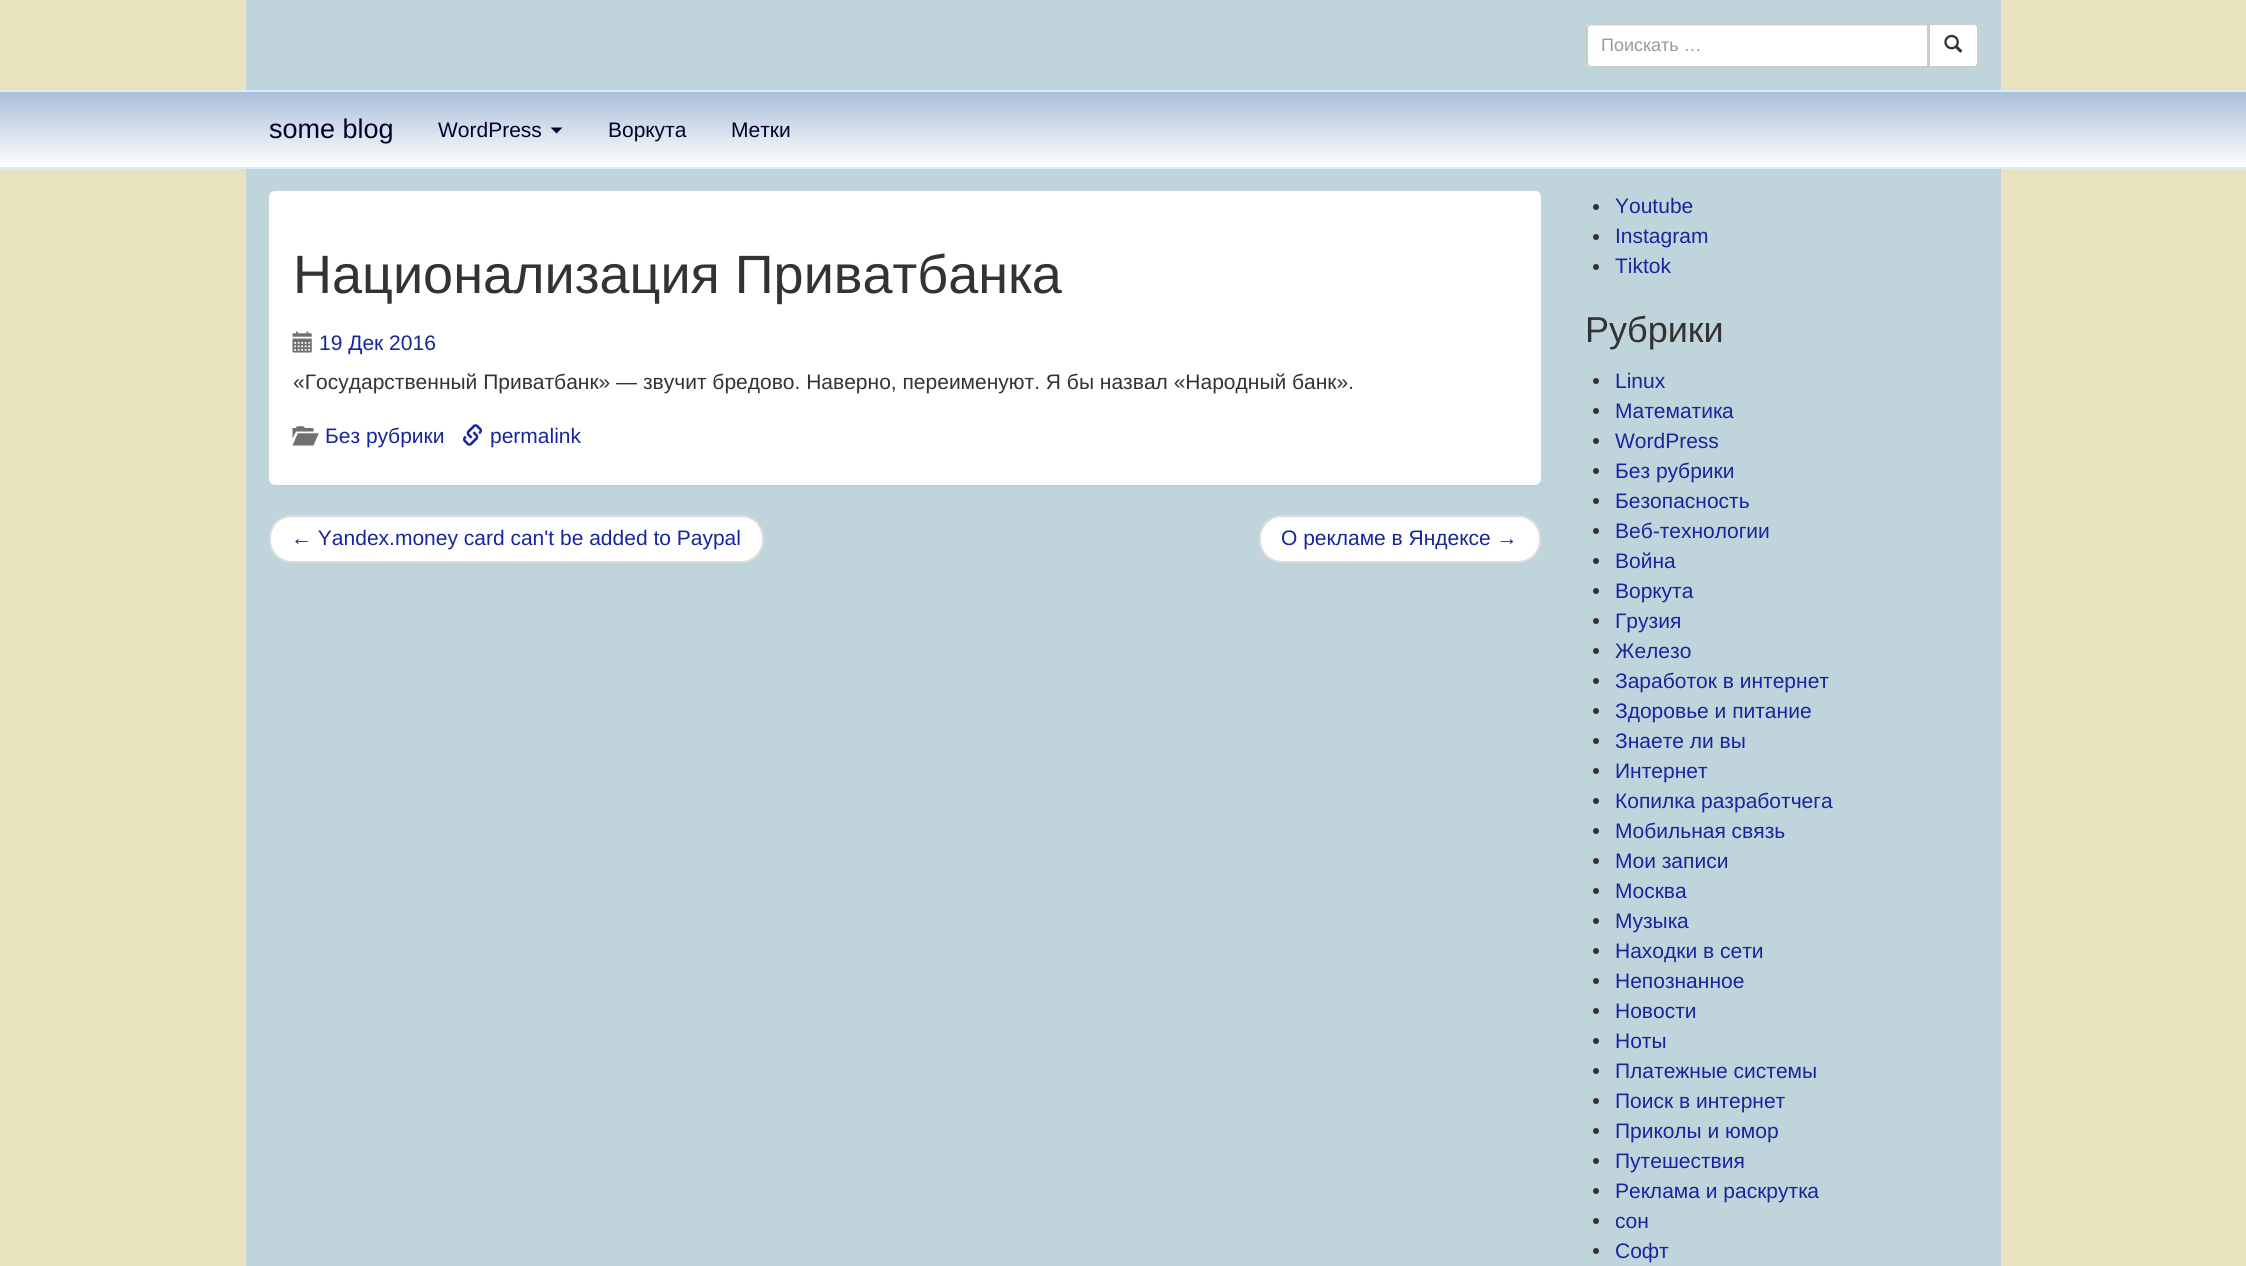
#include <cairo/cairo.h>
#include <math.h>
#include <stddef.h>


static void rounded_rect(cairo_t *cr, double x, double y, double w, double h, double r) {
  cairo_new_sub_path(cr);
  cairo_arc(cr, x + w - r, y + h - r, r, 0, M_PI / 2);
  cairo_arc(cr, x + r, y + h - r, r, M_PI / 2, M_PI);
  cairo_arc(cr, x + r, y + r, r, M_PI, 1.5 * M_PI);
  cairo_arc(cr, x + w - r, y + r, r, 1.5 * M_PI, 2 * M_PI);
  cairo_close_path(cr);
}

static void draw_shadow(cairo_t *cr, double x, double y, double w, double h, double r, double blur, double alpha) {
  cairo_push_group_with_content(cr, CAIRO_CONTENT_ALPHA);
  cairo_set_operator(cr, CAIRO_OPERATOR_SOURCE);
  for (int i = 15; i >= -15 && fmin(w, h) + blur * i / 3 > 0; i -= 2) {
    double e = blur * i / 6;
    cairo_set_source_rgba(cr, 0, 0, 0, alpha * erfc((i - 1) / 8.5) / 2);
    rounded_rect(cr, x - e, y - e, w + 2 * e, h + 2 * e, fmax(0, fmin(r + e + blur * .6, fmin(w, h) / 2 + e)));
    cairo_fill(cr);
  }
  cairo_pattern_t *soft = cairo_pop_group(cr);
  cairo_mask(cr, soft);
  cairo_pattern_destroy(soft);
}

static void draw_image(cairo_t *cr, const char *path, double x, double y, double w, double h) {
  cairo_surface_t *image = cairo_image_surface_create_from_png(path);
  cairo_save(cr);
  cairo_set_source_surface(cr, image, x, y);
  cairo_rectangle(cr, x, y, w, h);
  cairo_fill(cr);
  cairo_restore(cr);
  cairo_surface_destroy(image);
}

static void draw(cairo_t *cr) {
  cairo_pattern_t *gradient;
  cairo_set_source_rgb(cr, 232 / 255.0, 227 / 255.0, 190 / 255.0);
  cairo_paint(cr);
  cairo_set_source_rgb(cr, 192 / 255.0, 212 / 255.0, 219 / 255.0);
  cairo_rectangle(cr, 246, 0, 1755, 1266);
  cairo_fill(cr);
  cairo_set_source_rgb(cr, 1, 1, 1);
  cairo_new_path(cr);
  cairo_move_to(cr, 1929, 24);
  cairo_line_to(cr, 1974, 24);
  cairo_curve_to(cr, 1976, 24, 1978, 26, 1978, 28);
  cairo_line_to(cr, 1978, 63);
  cairo_curve_to(cr, 1978, 65, 1976, 67, 1974, 67);
  cairo_line_to(cr, 1929, 67);
  cairo_close_path(cr);
  cairo_fill_preserve(cr);
  cairo_set_source_rgb(cr, 204 / 255.0, 204 / 255.0, 204 / 255.0);
  cairo_stroke(cr);
  cairo_set_source_rgb(cr, 1, 1, 1);
  cairo_new_path(cr);
  cairo_move_to(cr, 1591, 23);
  cairo_line_to(cr, 1929, 23);
  cairo_line_to(cr, 1929, 68);
  cairo_line_to(cr, 1591, 68);
  cairo_curve_to(cr, 1588, 68, 1586, 66, 1586, 63);
  cairo_line_to(cr, 1586, 28);
  cairo_curve_to(cr, 1586, 25, 1588, 23, 1591, 23);
  cairo_close_path(cr);
  cairo_fill(cr);
  cairo_set_source_rgb(cr, 236 / 255.0, 236 / 255.0, 236 / 255.0);
  cairo_new_path(cr);
  cairo_move_to(cr, 1590, 26);
  cairo_line_to(cr, 1928, 26);
  cairo_line_to(cr, 1928, 24);
  cairo_line_to(cr, 1590, 24);
  cairo_curve_to(cr, 1588, 24, 1587, 26, 1587, 28);
  cairo_curve_to(cr, 1587, 27, 1588, 26, 1590, 26);
  cairo_close_path(cr);
  cairo_fill(cr);
  cairo_new_path(cr);
  cairo_move_to(cr, 1591, 24);
  cairo_line_to(cr, 1928, 24);
  cairo_line_to(cr, 1928, 67);
  cairo_line_to(cr, 1591, 67);
  cairo_curve_to(cr, 1589, 67, 1587, 65, 1587, 63);
  cairo_line_to(cr, 1587, 28);
  cairo_curve_to(cr, 1587, 26, 1589, 24, 1591, 24);
  cairo_close_path(cr);
  cairo_set_source_rgb(cr, 204 / 255.0, 204 / 255.0, 204 / 255.0);
  cairo_stroke(cr);
  draw_image(cr, "images/1.png", 1944, 34, 19, 19);
  gradient = cairo_pattern_create_linear(1124, 91, 1124, 167);
  cairo_pattern_add_color_stop_rgba(gradient, 0, 169 / 255.0, 190 / 255.0, 216 / 255.0, 1);
  cairo_pattern_add_color_stop_rgba(gradient, 1, 1, 1, 1, 1);
  cairo_set_source(cr, gradient);
  cairo_pattern_destroy(gradient);
  cairo_rectangle(cr, 0, 92, 2246, 75);
  cairo_fill(cr);
  cairo_set_source_rgb(cr, 211 / 255.0, 237 / 255.0, 1);
  cairo_rectangle(cr, 0, 90, 2246, 2);
  cairo_fill(cr);
  cairo_rectangle(cr, 0, 167, 2246, 2);
  cairo_fill(cr);
  cairo_set_source_rgb(cr, 6 / 255.0, 0, 45 / 255.0);
  cairo_new_path(cr);
  cairo_move_to(cr, 550.5, 127.5);
  cairo_line_to(cr, 562.5, 127.5);
  cairo_line_to(cr, 556.5, 133.5);
  cairo_close_path(cr);
  cairo_fill(cr);
  cairo_set_source_rgb(cr, 0, 0, 0);
  draw_shadow(cr, 269, 192, 1272, 294, 6, 1, 0.05);
  cairo_set_source_rgb(cr, 1, 1, 1);
  rounded_rect(cr, 269, 191, 1272, 294, 6);
  cairo_fill(cr);
  draw_image(cr, "images/2.png", 292, 331, 20, 22);
  draw_image(cr, "images/3.png", 292, 426, 27, 20);
  draw_image(cr, "images/4.png", 463, 424, 19, 22);
  rounded_rect(cr, 270, 516, 493, 46, 22);
  cairo_fill_preserve(cr);
  cairo_set_source_rgb(cr, 221 / 255.0, 221 / 255.0, 221 / 255.0);
  cairo_stroke(cr);
  cairo_set_source_rgb(cr, 1, 1, 1);
  rounded_rect(cr, 1260, 516, 280, 46, 22);
  cairo_fill_preserve(cr);
  cairo_set_source_rgb(cr, 221 / 255.0, 221 / 255.0, 221 / 255.0);
  cairo_stroke(cr);
  cairo_set_source_rgb(cr, 51 / 255.0, 51 / 255.0, 51 / 255.0);
  cairo_arc(cr, 1596, 207, 3, 0, 2 * M_PI);
  cairo_fill(cr);
  cairo_arc(cr, 1596, 237, 3, 0, 2 * M_PI);
  cairo_fill(cr);
  cairo_arc(cr, 1596, 267, 3, 0, 2 * M_PI);
  cairo_fill(cr);
  cairo_arc(cr, 1596, 381, 3, 0, 2 * M_PI);
  cairo_fill(cr);
  cairo_arc(cr, 1596, 411, 3, 0, 2 * M_PI);
  cairo_fill(cr);
  cairo_arc(cr, 1596, 441, 3, 0, 2 * M_PI);
  cairo_fill(cr);
  cairo_arc(cr, 1596, 471, 3, 0, 2 * M_PI);
  cairo_fill(cr);
  cairo_arc(cr, 1596, 501, 3, 0, 2 * M_PI);
  cairo_fill(cr);
  cairo_arc(cr, 1596, 531, 3, 0, 2 * M_PI);
  cairo_fill(cr);
  cairo_arc(cr, 1596, 561, 3, 0, 2 * M_PI);
  cairo_fill(cr);
  cairo_arc(cr, 1596, 591, 3, 0, 2 * M_PI);
  cairo_fill(cr);
  cairo_arc(cr, 1596, 621, 3, 0, 2 * M_PI);
  cairo_fill(cr);
  cairo_arc(cr, 1596, 651, 3, 0, 2 * M_PI);
  cairo_fill(cr);
  cairo_arc(cr, 1596, 681, 3, 0, 2 * M_PI);
  cairo_fill(cr);
  cairo_arc(cr, 1596, 711, 3, 0, 2 * M_PI);
  cairo_fill(cr);
  cairo_arc(cr, 1596, 741, 3, 0, 2 * M_PI);
  cairo_fill(cr);
  cairo_arc(cr, 1596, 771, 3, 0, 2 * M_PI);
  cairo_fill(cr);
  cairo_arc(cr, 1596, 801, 3, 0, 2 * M_PI);
  cairo_fill(cr);
  cairo_arc(cr, 1596, 831, 3, 0, 2 * M_PI);
  cairo_fill(cr);
  cairo_arc(cr, 1596, 861, 3, 0, 2 * M_PI);
  cairo_fill(cr);
  cairo_arc(cr, 1596, 891, 3, 0, 2 * M_PI);
  cairo_fill(cr);
  cairo_arc(cr, 1596, 921, 3, 0, 2 * M_PI);
  cairo_fill(cr);
  cairo_arc(cr, 1596, 951, 3, 0, 2 * M_PI);
  cairo_fill(cr);
  cairo_arc(cr, 1596, 981, 3, 0, 2 * M_PI);
  cairo_fill(cr);
  cairo_arc(cr, 1596, 1011, 3, 0, 2 * M_PI);
  cairo_fill(cr);
  cairo_arc(cr, 1596, 1041, 3, 0, 2 * M_PI);
  cairo_fill(cr);
  cairo_arc(cr, 1596, 1071, 3, 0, 2 * M_PI);
  cairo_fill(cr);
  cairo_arc(cr, 1596, 1101, 3, 0, 2 * M_PI);
  cairo_fill(cr);
  cairo_arc(cr, 1596, 1131, 3, 0, 2 * M_PI);
  cairo_fill(cr);
  cairo_arc(cr, 1596, 1161, 3, 0, 2 * M_PI);
  cairo_fill(cr);
  cairo_arc(cr, 1596, 1191, 3, 0, 2 * M_PI);
  cairo_fill(cr);
  cairo_arc(cr, 1596, 1221, 3, 0, 2 * M_PI);
  cairo_fill(cr);
  cairo_arc(cr, 1596, 1251, 3, 0, 2 * M_PI);
  cairo_fill(cr);
  cairo_select_font_face(cr, "Liberation Sans", CAIRO_FONT_SLANT_NORMAL, CAIRO_FONT_WEIGHT_NORMAL);
  cairo_set_font_size(cr, 18);
  cairo_set_source_rgb(cr, 153 / 255.0, 153 / 255.0, 153 / 255.0);
  cairo_move_to(cr, 1601, 51);
  cairo_show_text(cr, "Поискать …");
  cairo_set_font_size(cr, 27);
  cairo_set_source_rgb(cr, 6 / 255.0, 0, 45 / 255.0);
  cairo_move_to(cr, 269, 138);
  cairo_show_text(cr, "some blog");
  cairo_set_font_size(cr, 21);
  cairo_move_to(cr, 438, 137);
  cairo_show_text(cr, "WordPress");
  cairo_move_to(cr, 608, 137);
  cairo_show_text(cr, "Воркута");
  cairo_move_to(cr, 731, 137);
  cairo_show_text(cr, "Метки");
  cairo_set_font_size(cr, 54);
  cairo_set_source_rgb(cr, 51 / 255.0, 51 / 255.0, 51 / 255.0);
  cairo_move_to(cr, 293, 293);
  cairo_show_text(cr, "Национализация Приватбанка");
  cairo_set_font_size(cr, 21);
  cairo_set_source_rgb(cr, 23 / 255.0, 37 / 255.0, 158 / 255.0);
  cairo_move_to(cr, 319, 350);
  cairo_show_text(cr, "19 Дек 2016");
  cairo_set_source_rgb(cr, 51 / 255.0, 51 / 255.0, 51 / 255.0);
  cairo_move_to(cr, 293, 389);
  cairo_show_text(cr, "«Государственный Приватбанк» — звучит бредово. Наверно, переименуют. Я бы назвал «Народный банк».");
  cairo_set_source_rgb(cr, 23 / 255.0, 37 / 255.0, 158 / 255.0);
  cairo_move_to(cr, 325, 443);
  cairo_show_text(cr, "Без рубрики");
  cairo_move_to(cr, 490, 443);
  cairo_show_text(cr, "permalink");
  cairo_move_to(cr, 291, 545);
  cairo_show_text(cr, "← Yandex.money card can't be added to Paypal");
  cairo_move_to(cr, 1281, 545);
  cairo_show_text(cr, "О рекламе в Яндексе →");
  cairo_move_to(cr, 1615, 213);
  cairo_show_text(cr, "Youtube");
  cairo_move_to(cr, 1615, 243);
  cairo_show_text(cr, "Instagram");
  cairo_move_to(cr, 1615, 273);
  cairo_show_text(cr, "Tiktok");
  cairo_set_font_size(cr, 36);
  cairo_set_source_rgb(cr, 51 / 255.0, 51 / 255.0, 51 / 255.0);
  cairo_move_to(cr, 1585, 342);
  cairo_show_text(cr, "Рубрики");
  cairo_set_font_size(cr, 21);
  cairo_set_source_rgb(cr, 23 / 255.0, 37 / 255.0, 158 / 255.0);
  cairo_move_to(cr, 1615, 388);
  cairo_show_text(cr, "Linux");
  cairo_move_to(cr, 1615, 418);
  cairo_show_text(cr, "Mатематика");
  cairo_move_to(cr, 1615, 448);
  cairo_show_text(cr, "WordPress");
  cairo_move_to(cr, 1615, 478);
  cairo_show_text(cr, "Без рубрики");
  cairo_move_to(cr, 1615, 508);
  cairo_show_text(cr, "Безопасность");
  cairo_move_to(cr, 1615, 538);
  cairo_show_text(cr, "Веб-технологии");
  cairo_move_to(cr, 1615, 568);
  cairo_show_text(cr, "Война");
  cairo_move_to(cr, 1615, 598);
  cairo_show_text(cr, "Воркута");
  cairo_move_to(cr, 1615, 628);
  cairo_show_text(cr, "Грузия");
  cairo_move_to(cr, 1615, 658);
  cairo_show_text(cr, "Железо");
  cairo_move_to(cr, 1615, 688);
  cairo_show_text(cr, "Заработок в интернет");
  cairo_move_to(cr, 1615, 718);
  cairo_show_text(cr, "Здоровье и питание");
  cairo_move_to(cr, 1615, 748);
  cairo_show_text(cr, "Знаете ли вы");
  cairo_move_to(cr, 1615, 778);
  cairo_show_text(cr, "Интернет");
  cairo_move_to(cr, 1615, 808);
  cairo_show_text(cr, "Копилка разработчега");
  cairo_move_to(cr, 1615, 838);
  cairo_show_text(cr, "Мобильная связь");
  cairo_move_to(cr, 1615, 868);
  cairo_show_text(cr, "Мои записи");
  cairo_move_to(cr, 1615, 898);
  cairo_show_text(cr, "Москва");
  cairo_move_to(cr, 1615, 928);
  cairo_show_text(cr, "Музыка");
  cairo_move_to(cr, 1615, 958);
  cairo_show_text(cr, "Находки в сети");
  cairo_move_to(cr, 1615, 988);
  cairo_show_text(cr, "Непознанное");
  cairo_move_to(cr, 1615, 1018);
  cairo_show_text(cr, "Новости");
  cairo_move_to(cr, 1615, 1048);
  cairo_show_text(cr, "Ноты");
  cairo_move_to(cr, 1615, 1078);
  cairo_show_text(cr, "Платежные системы");
  cairo_move_to(cr, 1615, 1108);
  cairo_show_text(cr, "Поиск в интернет");
  cairo_move_to(cr, 1615, 1138);
  cairo_show_text(cr, "Приколы и юмор");
  cairo_move_to(cr, 1615, 1168);
  cairo_show_text(cr, "Путешествия");
  cairo_move_to(cr, 1615, 1198);
  cairo_show_text(cr, "Реклама и раскрутка");
  cairo_move_to(cr, 1615, 1228);
  cairo_show_text(cr, "сон");
  cairo_move_to(cr, 1615, 1258);
  cairo_show_text(cr, "Софт");
}

int main(void) {
  cairo_surface_t *surface = cairo_image_surface_create(CAIRO_FORMAT_RGB24, 2246, 1266);
  cairo_t *cr = cairo_create(surface);
  cairo_font_options_t *options = cairo_font_options_create();
  cairo_font_options_set_hint_metrics(options, CAIRO_HINT_METRICS_OFF);
  cairo_font_options_set_hint_style(options, CAIRO_HINT_STYLE_NONE);
  cairo_set_font_options(cr, options);
  cairo_set_miter_limit(cr, 4);
  draw(cr);
  cairo_surface_write_to_png(surface, "out.png");
  cairo_font_options_destroy(options);
  cairo_destroy(cr);
  cairo_surface_destroy(surface);
  return 0;
}
